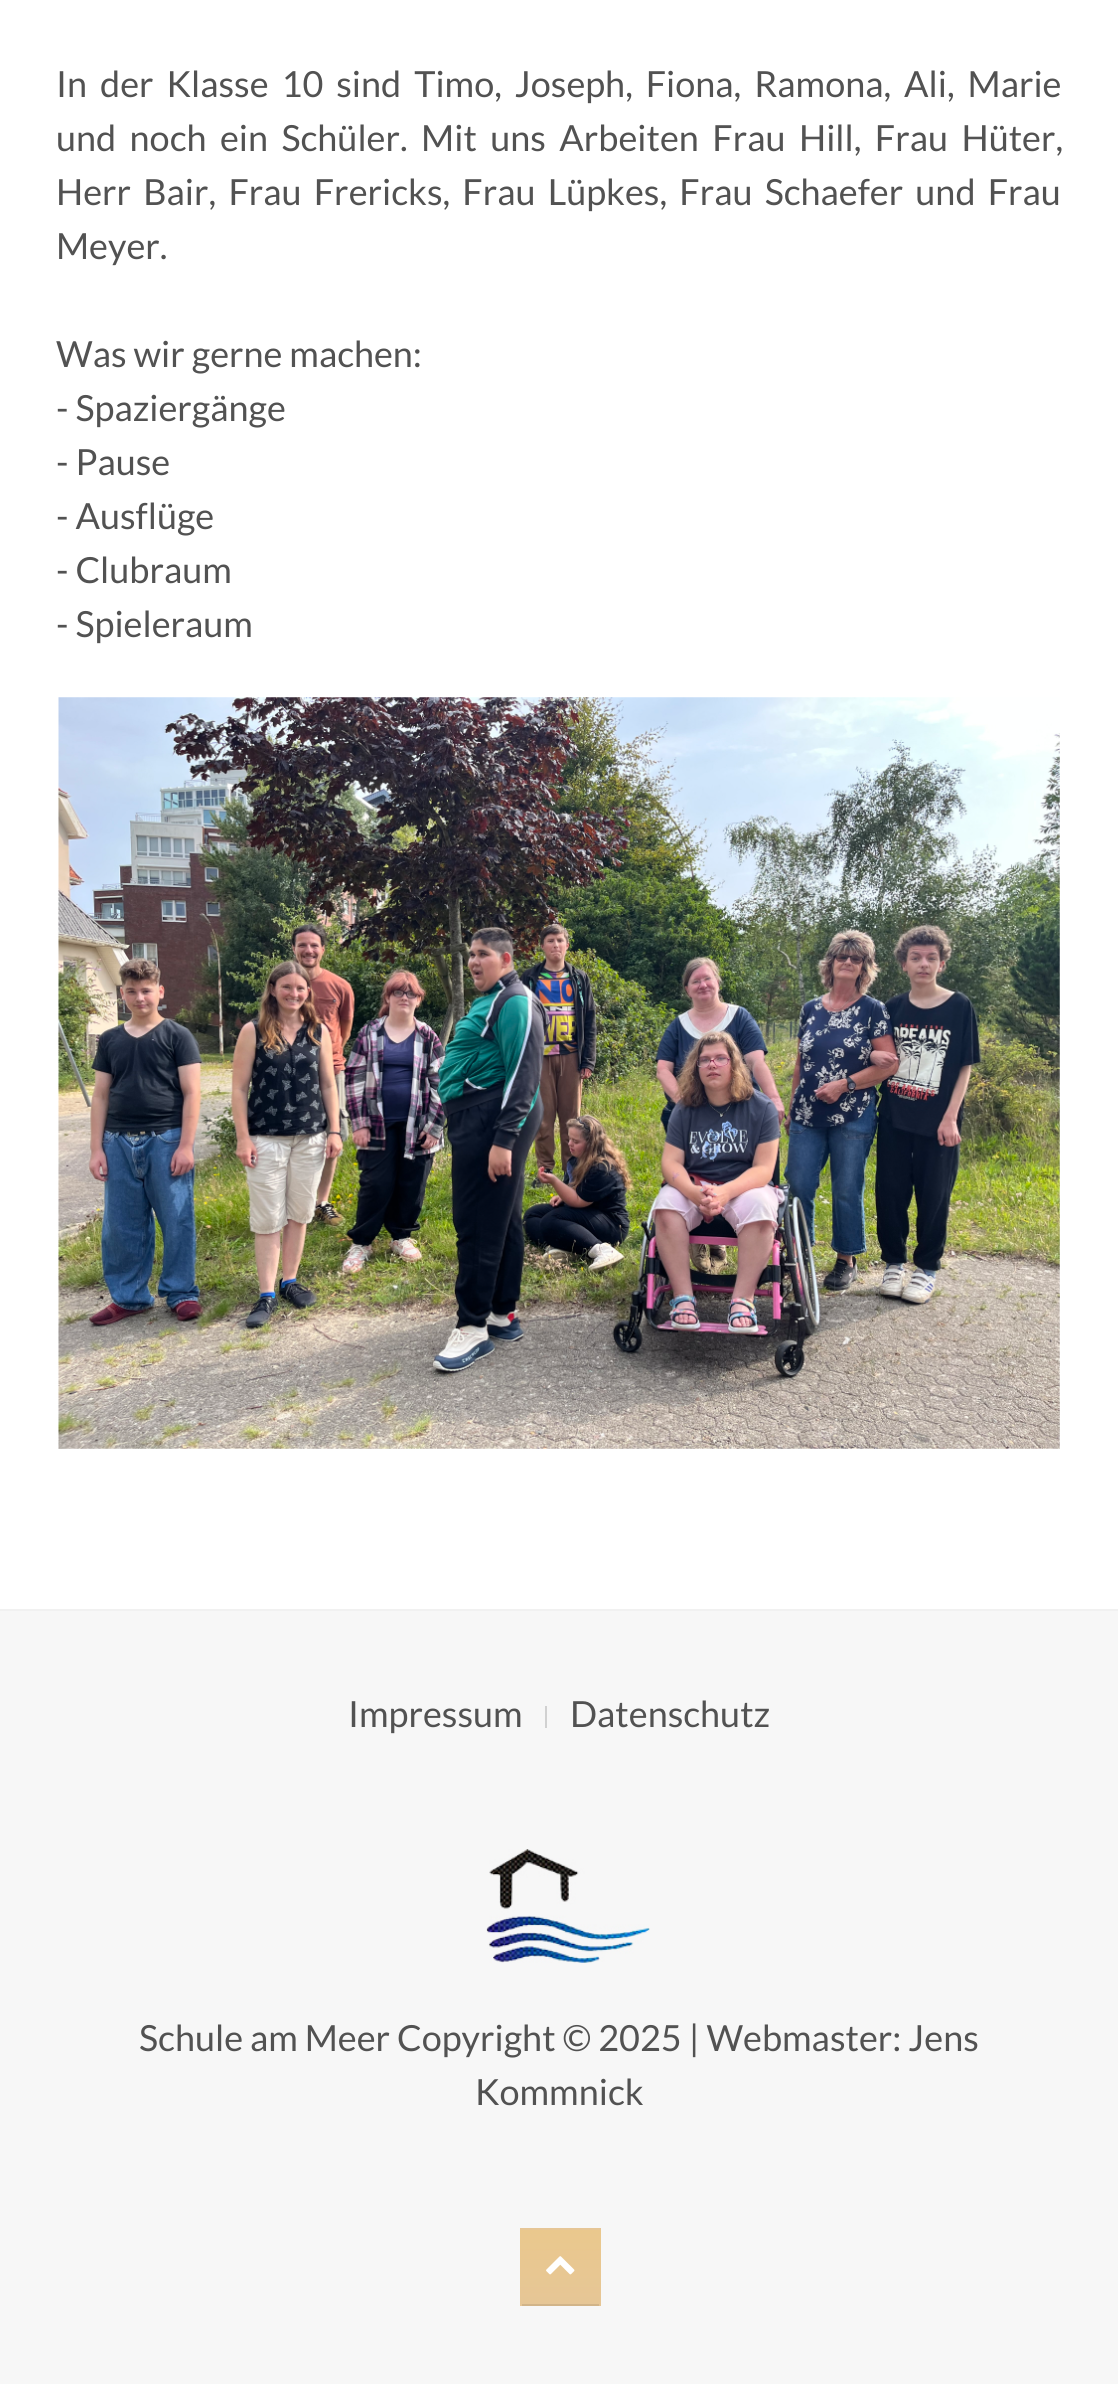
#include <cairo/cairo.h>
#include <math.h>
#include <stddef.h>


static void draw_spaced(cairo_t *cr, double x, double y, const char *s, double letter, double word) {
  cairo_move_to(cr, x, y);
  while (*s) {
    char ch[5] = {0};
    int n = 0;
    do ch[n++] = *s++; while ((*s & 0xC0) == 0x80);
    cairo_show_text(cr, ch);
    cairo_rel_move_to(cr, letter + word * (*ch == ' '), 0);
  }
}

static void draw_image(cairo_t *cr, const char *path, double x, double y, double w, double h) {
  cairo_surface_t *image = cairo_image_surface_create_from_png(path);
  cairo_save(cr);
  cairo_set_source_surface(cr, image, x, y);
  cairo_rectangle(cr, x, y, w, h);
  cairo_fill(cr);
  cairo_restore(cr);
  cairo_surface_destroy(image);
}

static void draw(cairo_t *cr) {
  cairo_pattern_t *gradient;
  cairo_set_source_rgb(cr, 247 / 255.0, 247 / 255.0, 247 / 255.0);
  cairo_paint(cr);
  cairo_rectangle(cr, -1, -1, 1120, 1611);
  cairo_set_source_rgba(cr, 47 / 255.0, 49 / 255.0, 53 / 255.0, 0.03);
  cairo_stroke(cr);
  cairo_set_source_rgb(cr, 1, 1, 1);
  cairo_rectangle(cr, 0, 0, 1118, 1609);
  cairo_fill(cr);
  draw_image(cr, "images/1.png", 58, 697, 1002, 752);
  cairo_set_source_rgb(cr, 209 / 255.0, 209 / 255.0, 209 / 255.0);
  cairo_rectangle(cr, 545, 1706, 2, 22);
  cairo_fill(cr);
  draw_image(cr, "images/2.png", 486, 1849, 164, 114);
  gradient = cairo_pattern_create_linear(560, 2153, 560, 2230);
  cairo_pattern_add_color_stop_rgba(gradient, 0, 234 / 255.0, 200 / 255.0, 141 / 255.0, 1);
  cairo_pattern_add_color_stop_rgba(gradient, 1, 230 / 255.0, 198 / 255.0, 150 / 255.0, 1);
  cairo_set_source(cr, gradient);
  cairo_pattern_destroy(gradient);
  cairo_rectangle(cr, 520, 2228, 81, 2);
  cairo_fill(cr);
  gradient = cairo_pattern_create_linear(560, 2230, 560, 2306);
  cairo_pattern_add_color_stop_rgba(gradient, 0, 234 / 255.0, 200 / 255.0, 141 / 255.0, 1);
  cairo_pattern_add_color_stop_rgba(gradient, 1, 230 / 255.0, 198 / 255.0, 150 / 255.0, 1);
  cairo_set_source(cr, gradient);
  cairo_pattern_destroy(gradient);
  cairo_rectangle(cr, 520, 2230, 81, 76);
  cairo_fill(cr);
  cairo_set_source_rgb(cr, 209 / 255.0, 180 / 255.0, 137 / 255.0);
  cairo_rectangle(cr, 522, 2304, 77, 2);
  cairo_fill(cr);
  draw_image(cr, "images/3.png", 546, 2256, 29, 19);
  cairo_select_font_face(cr, "Lato", CAIRO_FONT_SLANT_NORMAL, CAIRO_FONT_WEIGHT_NORMAL);
  cairo_set_font_size(cr, 36);
  cairo_set_source_rgb(cr, 82 / 255.0, 82 / 255.0, 82 / 255.0);
  draw_spaced(cr, 56, 97, "In der Klasse 10 sind Timo, Joseph, Fiona, Ramona, Ali, Marie", 0, 6);
  draw_spaced(cr, 56, 151, "und noch ein Schüler. Mit uns Arbeiten Frau Hill, Frau Hüter,", 0, 6.5);
  draw_spaced(cr, 56, 205, "Herr Bair, Frau Frericks, Frau Lüpkes, Frau Schaefer und Frau", 0, 5.25);
  cairo_move_to(cr, 56, 259);
  cairo_show_text(cr, "Meyer.");
  cairo_move_to(cr, 56, 367);
  cairo_show_text(cr, "Was wir gerne machen:");
  cairo_move_to(cr, 56, 421);
  cairo_show_text(cr, "- Spaziergänge");
  cairo_move_to(cr, 56, 475);
  cairo_show_text(cr, "- Pause");
  cairo_move_to(cr, 56, 529);
  cairo_show_text(cr, "- Ausflüge");
  cairo_move_to(cr, 56, 583);
  cairo_show_text(cr, "- Clubraum");
  cairo_move_to(cr, 56, 637);
  cairo_show_text(cr, "- Spieleraum");
  cairo_move_to(cr, 348, 1727);
  cairo_show_text(cr, "Impressum");
  cairo_move_to(cr, 570, 1727);
  cairo_show_text(cr, "Datenschutz");
  cairo_move_to(cr, 139, 2051);
  cairo_show_text(cr, "Schule am Meer Copyright © 2025 | Webmaster: Jens");
  cairo_move_to(cr, 475, 2105);
  cairo_show_text(cr, "Kommnick");
}

int main(void) {
  cairo_surface_t *surface = cairo_image_surface_create(CAIRO_FORMAT_RGB24, 1118, 2384);
  cairo_t *cr = cairo_create(surface);
  cairo_font_options_t *options = cairo_font_options_create();
  cairo_font_options_set_hint_metrics(options, CAIRO_HINT_METRICS_OFF);
  cairo_font_options_set_hint_style(options, CAIRO_HINT_STYLE_NONE);
  cairo_set_font_options(cr, options);
  cairo_set_miter_limit(cr, 4);
  draw(cr);
  cairo_surface_write_to_png(surface, "out.png");
  cairo_font_options_destroy(options);
  cairo_destroy(cr);
  cairo_surface_destroy(surface);
  return 0;
}
